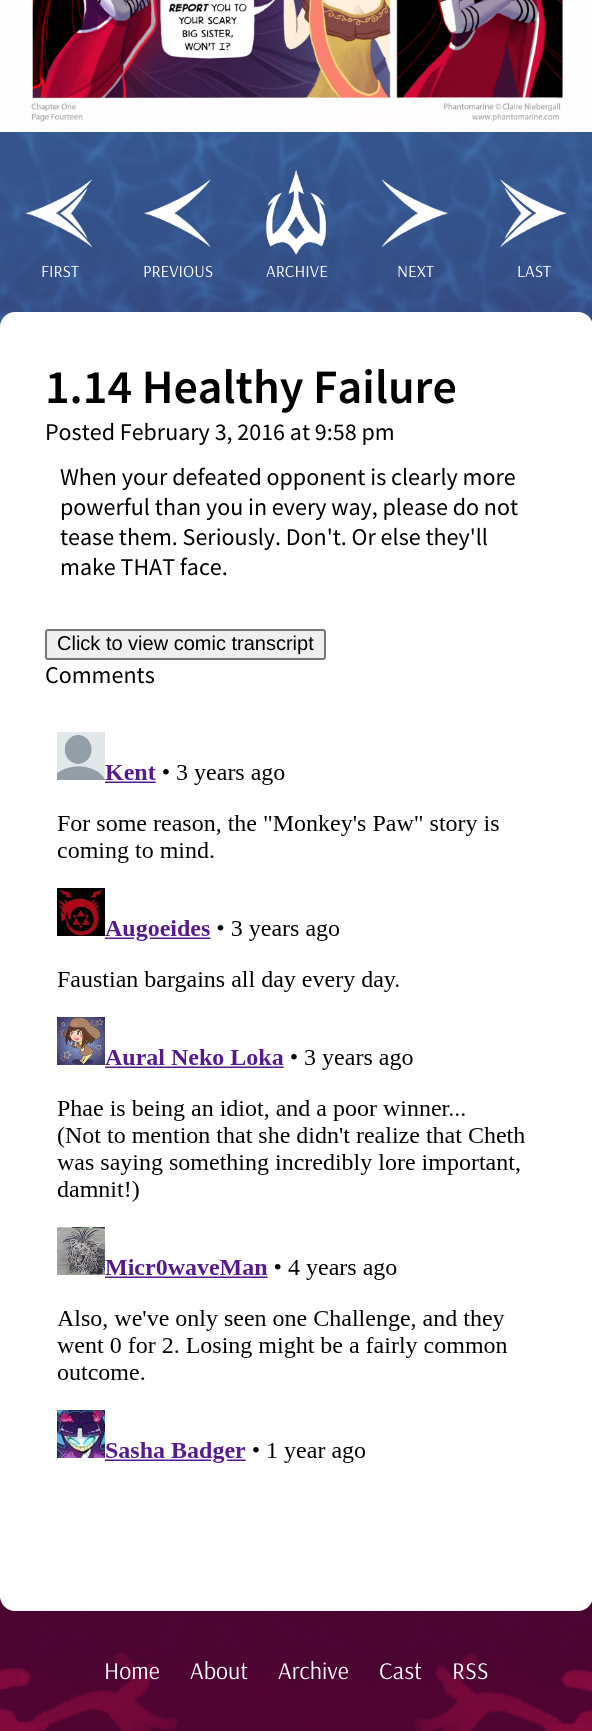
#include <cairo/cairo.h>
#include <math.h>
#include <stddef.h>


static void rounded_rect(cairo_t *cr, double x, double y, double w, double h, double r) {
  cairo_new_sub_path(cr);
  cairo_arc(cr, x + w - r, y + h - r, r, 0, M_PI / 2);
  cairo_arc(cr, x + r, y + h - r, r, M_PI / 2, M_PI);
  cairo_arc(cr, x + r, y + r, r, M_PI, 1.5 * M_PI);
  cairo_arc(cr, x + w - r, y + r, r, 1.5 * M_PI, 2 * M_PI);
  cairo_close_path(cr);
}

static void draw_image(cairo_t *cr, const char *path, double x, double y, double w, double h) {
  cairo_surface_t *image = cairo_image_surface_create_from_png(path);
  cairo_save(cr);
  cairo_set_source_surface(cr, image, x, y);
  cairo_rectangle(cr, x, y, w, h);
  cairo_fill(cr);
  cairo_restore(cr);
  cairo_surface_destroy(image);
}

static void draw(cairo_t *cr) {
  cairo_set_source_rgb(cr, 1, 1, 1);
  cairo_paint(cr);
  draw_image(cr, "images/1.png", 0, 132, 592, 1599);
  draw_image(cr, "images/2.png", 0, 0, 592, 132);
  draw_image(cr, "images/3.png", 25, 179, 68, 69);
  draw_image(cr, "images/4.png", 144, 179, 67, 69);
  draw_image(cr, "images/5.png", 266, 170, 60, 85);
  draw_image(cr, "images/6.png", 381, 179, 68, 69);
  draw_image(cr, "images/7.png", 500, 179, 67, 69);
  cairo_set_source_rgb(cr, 1, 1, 1);
  rounded_rect(cr, 0, 312, 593, 1299, 15);
  cairo_fill(cr);
  cairo_set_source_rgb(cr, 239 / 255.0, 239 / 255.0, 239 / 255.0);
  rounded_rect(cr, 46, 630, 279, 29, 2);
  cairo_fill_preserve(cr);
  cairo_set_source_rgb(cr, 118 / 255.0, 118 / 255.0, 118 / 255.0);
  cairo_stroke(cr);
  draw_image(cr, "images/8.png", 57, 732, 468, 731);
  draw_image(cr, "images/9.png", 0, 1651, 592, 80);
  cairo_select_font_face(cr, "Arsenal", CAIRO_FONT_SLANT_NORMAL, CAIRO_FONT_WEIGHT_NORMAL);
  cairo_set_font_size(cr, 17);
  cairo_set_source_rgb(cr, 1, 1, 1);
  cairo_move_to(cr, 41, 277);
  cairo_show_text(cr, "FIRST");
  cairo_move_to(cr, 143, 277);
  cairo_show_text(cr, "PREVIOUS");
  cairo_move_to(cr, 266, 277);
  cairo_show_text(cr, "ARCHIVE");
  cairo_move_to(cr, 397, 277);
  cairo_show_text(cr, "NEXT");
  cairo_move_to(cr, 517, 277);
  cairo_show_text(cr, "LAST");
  cairo_select_font_face(cr, "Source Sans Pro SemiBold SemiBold", CAIRO_FONT_SLANT_NORMAL, CAIRO_FONT_WEIGHT_NORMAL);
  cairo_set_font_size(cr, 48);
  cairo_set_source_rgb(cr, 0, 0, 0);
  cairo_move_to(cr, 45, 403);
  cairo_show_text(cr, "1.14 Healthy Failure");
  cairo_select_font_face(cr, "Source Sans Pro", CAIRO_FONT_SLANT_NORMAL, CAIRO_FONT_WEIGHT_NORMAL);
  cairo_set_font_size(cr, 24);
  cairo_move_to(cr, 45, 440);
  cairo_show_text(cr, "Posted February 3, 2016 at 9:58 pm");
  cairo_move_to(cr, 60, 485);
  cairo_show_text(cr, "When your defeated opponent is clearly more");
  cairo_move_to(cr, 60, 515);
  cairo_show_text(cr, "powerful than you in every way, please do not");
  cairo_move_to(cr, 60, 545);
  cairo_show_text(cr, "tease them. Seriously. Don't. Or else they'll");
  cairo_move_to(cr, 60, 575);
  cairo_show_text(cr, "make THAT face.");
  cairo_select_font_face(cr, "Liberation Sans", CAIRO_FONT_SLANT_NORMAL, CAIRO_FONT_WEIGHT_NORMAL);
  cairo_set_font_size(cr, 20);
  cairo_move_to(cr, 57, 650);
  cairo_show_text(cr, "Click to view comic transcript");
  cairo_select_font_face(cr, "Source Sans Pro", CAIRO_FONT_SLANT_NORMAL, CAIRO_FONT_WEIGHT_NORMAL);
  cairo_set_font_size(cr, 24);
  cairo_move_to(cr, 45, 683);
  cairo_show_text(cr, "Comments");
  cairo_select_font_face(cr, "Arsenal", CAIRO_FONT_SLANT_NORMAL, CAIRO_FONT_WEIGHT_NORMAL);
  cairo_set_source_rgb(cr, 1, 1, 1);
  cairo_move_to(cr, 104, 1679);
  cairo_show_text(cr, "Home");
  cairo_move_to(cr, 190, 1679);
  cairo_show_text(cr, "About");
  cairo_move_to(cr, 278, 1679);
  cairo_show_text(cr, "Archive");
  cairo_move_to(cr, 379, 1679);
  cairo_show_text(cr, "Cast");
  cairo_move_to(cr, 452, 1679);
  cairo_show_text(cr, "RSS");
}

int main(void) {
  cairo_surface_t *surface = cairo_image_surface_create(CAIRO_FORMAT_RGB24, 592, 1731);
  cairo_t *cr = cairo_create(surface);
  cairo_font_options_t *options = cairo_font_options_create();
  cairo_font_options_set_hint_metrics(options, CAIRO_HINT_METRICS_OFF);
  cairo_font_options_set_hint_style(options, CAIRO_HINT_STYLE_NONE);
  cairo_set_font_options(cr, options);
  cairo_set_miter_limit(cr, 4);
  draw(cr);
  cairo_surface_write_to_png(surface, "out.png");
  cairo_font_options_destroy(options);
  cairo_destroy(cr);
  cairo_surface_destroy(surface);
  return 0;
}
